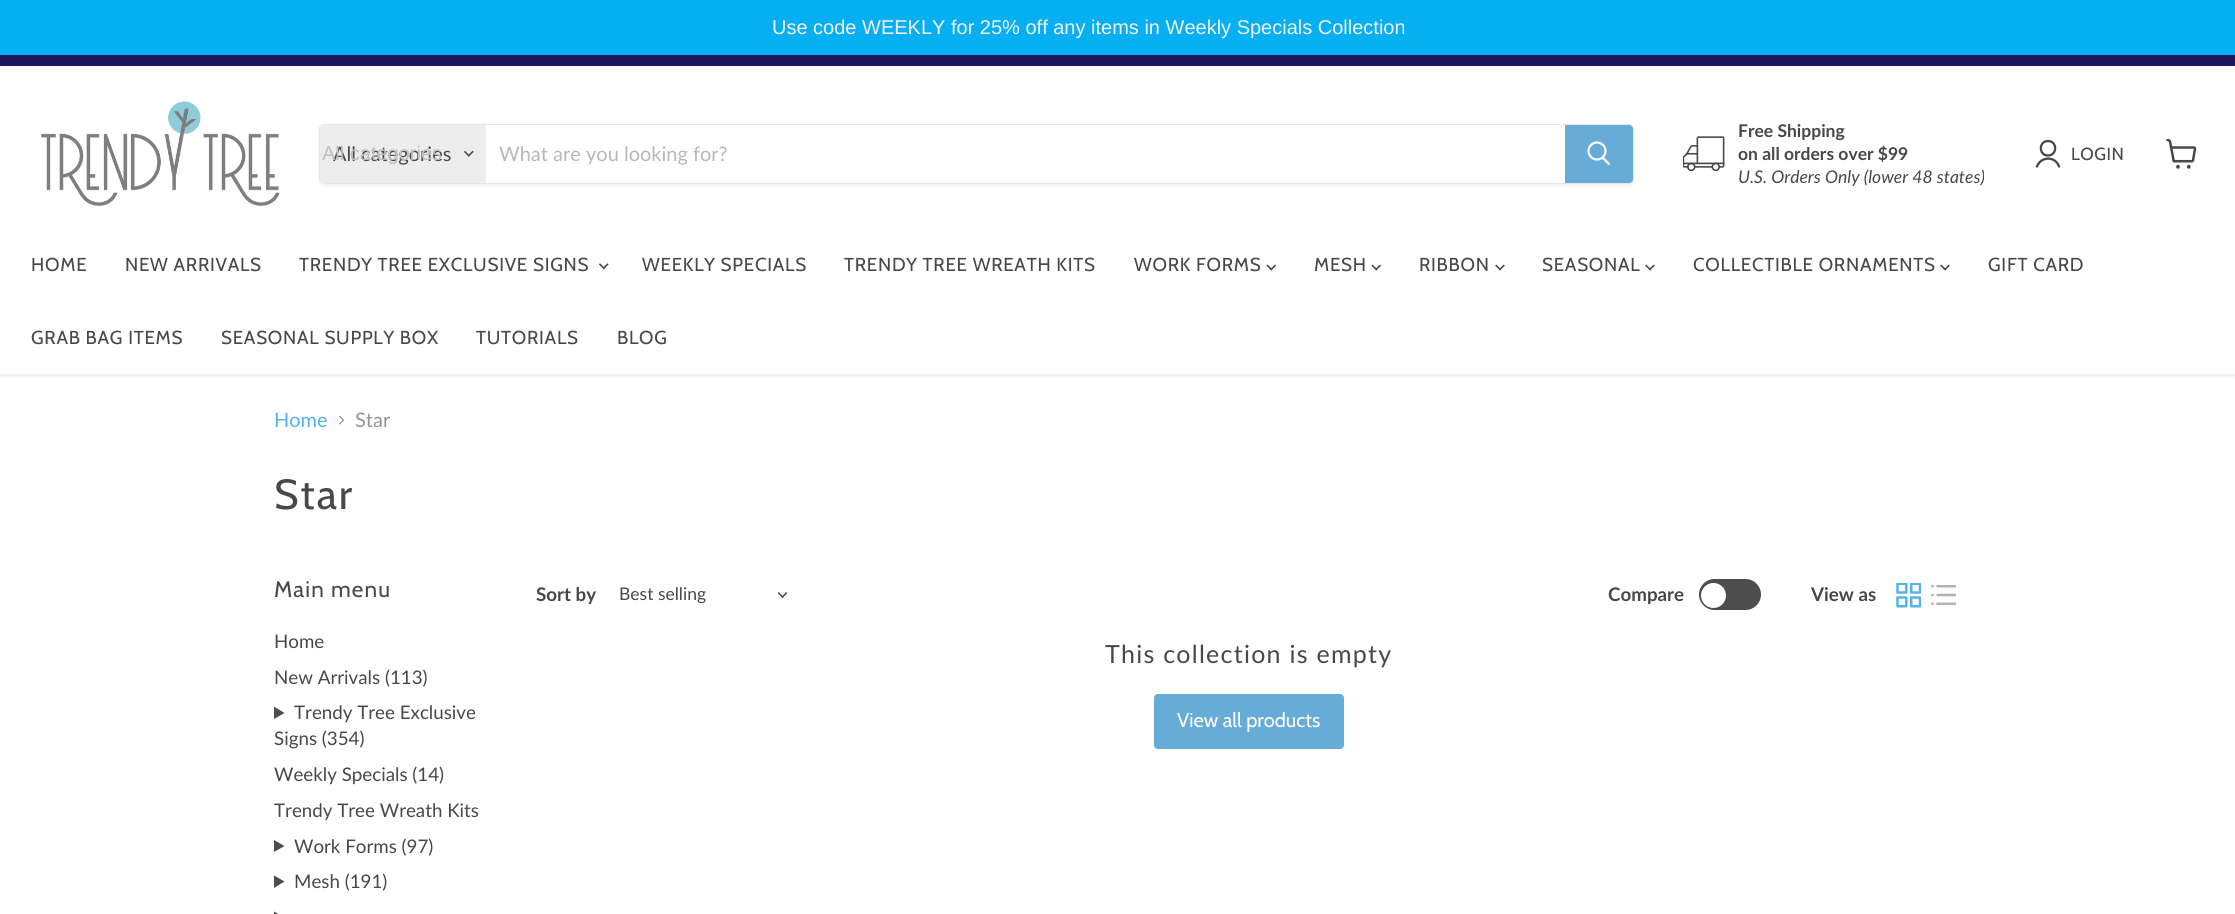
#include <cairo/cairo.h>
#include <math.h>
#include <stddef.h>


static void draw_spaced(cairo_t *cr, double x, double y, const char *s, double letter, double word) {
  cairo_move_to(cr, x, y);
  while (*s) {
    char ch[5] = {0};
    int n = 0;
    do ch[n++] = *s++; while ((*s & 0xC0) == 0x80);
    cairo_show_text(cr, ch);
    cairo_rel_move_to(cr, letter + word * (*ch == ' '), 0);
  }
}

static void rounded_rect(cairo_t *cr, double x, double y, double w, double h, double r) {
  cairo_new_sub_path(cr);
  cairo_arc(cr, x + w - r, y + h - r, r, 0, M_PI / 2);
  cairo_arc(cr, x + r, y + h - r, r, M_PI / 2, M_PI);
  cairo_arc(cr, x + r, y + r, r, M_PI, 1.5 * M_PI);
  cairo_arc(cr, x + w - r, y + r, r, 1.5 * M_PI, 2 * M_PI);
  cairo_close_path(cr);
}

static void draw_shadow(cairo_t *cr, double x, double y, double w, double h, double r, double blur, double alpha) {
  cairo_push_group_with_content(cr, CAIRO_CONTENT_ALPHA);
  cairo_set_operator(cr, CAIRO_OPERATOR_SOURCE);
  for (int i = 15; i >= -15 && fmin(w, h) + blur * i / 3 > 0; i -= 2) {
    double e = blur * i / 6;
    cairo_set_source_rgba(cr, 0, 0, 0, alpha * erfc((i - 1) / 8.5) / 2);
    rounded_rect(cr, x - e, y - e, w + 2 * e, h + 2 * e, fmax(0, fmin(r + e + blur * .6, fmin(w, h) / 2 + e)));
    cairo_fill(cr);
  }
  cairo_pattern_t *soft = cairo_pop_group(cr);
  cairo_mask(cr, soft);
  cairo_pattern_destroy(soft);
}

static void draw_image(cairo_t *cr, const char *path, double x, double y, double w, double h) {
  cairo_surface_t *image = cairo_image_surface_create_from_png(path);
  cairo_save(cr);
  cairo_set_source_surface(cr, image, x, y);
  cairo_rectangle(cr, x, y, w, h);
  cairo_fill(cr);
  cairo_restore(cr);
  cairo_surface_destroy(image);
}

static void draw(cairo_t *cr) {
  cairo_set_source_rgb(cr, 1, 1, 1);
  cairo_paint(cr);
  cairo_set_source_rgb(cr, 5 / 255.0, 175 / 255.0, 242 / 255.0);
  cairo_rectangle(cr, 0, 0, 2235, 55);
  cairo_fill(cr);
  cairo_set_source_rgb(cr, 128 / 255.0, 128 / 255.0, 128 / 255.0);
  draw_shadow(cr, 0, 68, 2235, 307, 0, 2.5, 0.25);
  cairo_set_source_rgb(cr, 27 / 255.0, 23 / 255.0, 93 / 255.0);
  cairo_rectangle(cr, 0, 55, 2235, 11);
  cairo_fill(cr);
  cairo_set_source_rgb(cr, 1, 1, 1);
  cairo_rectangle(cr, 0, 66, 2235, 308);
  cairo_fill(cr);
  draw_image(cr, "images/1.png", 41, 101, 239, 106);
  cairo_save(cr);
  cairo_set_fill_rule(cr, CAIRO_FILL_RULE_EVEN_ODD);
  cairo_new_path(cr);
  cairo_move_to(cr, 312, 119);
  cairo_line_to(cr, 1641, 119);
  cairo_line_to(cr, 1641, 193);
  cairo_line_to(cr, 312, 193);
  cairo_close_path(cr);
  cairo_move_to(cr, 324, 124);
  cairo_line_to(cr, 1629, 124);
  cairo_curve_to(cr, 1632, 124, 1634, 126, 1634, 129);
  cairo_line_to(cr, 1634, 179);
  cairo_curve_to(cr, 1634, 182, 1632, 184, 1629, 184);
  cairo_line_to(cr, 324, 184);
  cairo_curve_to(cr, 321, 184, 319, 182, 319, 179);
  cairo_line_to(cr, 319, 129);
  cairo_curve_to(cr, 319, 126, 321, 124, 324, 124);
  cairo_close_path(cr);
  cairo_clip(cr);
  cairo_set_source_rgb(cr, 128 / 255.0, 128 / 255.0, 128 / 255.0);
  draw_shadow(cr, 319, 126, 1315, 60, 5, 2, 0.11);
  cairo_restore(cr);
  rounded_rect(cr, 319.5, 124.5, 1314, 59, 4.5);
  cairo_set_source_rgba(cr, 128 / 255.0, 128 / 255.0, 128 / 255.0, 0.2);
  cairo_set_line_width(cr, 1);
  cairo_stroke(cr);
  cairo_set_source_rgb(cr, 237 / 255.0, 237 / 255.0, 237 / 255.0);
  cairo_new_path(cr);
  cairo_move_to(cr, 324, 125);
  cairo_line_to(cr, 486, 125);
  cairo_line_to(cr, 486, 183);
  cairo_line_to(cr, 324, 183);
  cairo_curve_to(cr, 322, 183, 320, 181, 320, 179);
  cairo_line_to(cr, 320, 129);
  cairo_curve_to(cr, 320, 127, 322, 125, 324, 125);
  cairo_close_path(cr);
  cairo_fill(cr);
  draw_image(cr, "images/2.png", 464, 150, 10, 7);
  cairo_set_source_rgb(cr, 103 / 255.0, 171 / 255.0, 217 / 255.0);
  cairo_new_path(cr);
  cairo_move_to(cr, 1565.5, 125.5);
  cairo_line_to(cr, 1629, 125.5);
  cairo_curve_to(cr, 1631, 125.5, 1632.5, 127, 1632.5, 129);
  cairo_line_to(cr, 1632.5, 179);
  cairo_curve_to(cr, 1632.5, 181, 1631, 182.5, 1629, 182.5);
  cairo_line_to(cr, 1565.5, 182.5);
  cairo_close_path(cr);
  cairo_fill_preserve(cr);
  cairo_stroke(cr);
  cairo_new_path(cr);
  cairo_move_to(cr, 1609, 164);
  cairo_line_to(cr, 1603, 158);
  cairo_set_source_rgb(cr, 1, 1, 1);
  cairo_set_line_width(cr, 2.2);
  cairo_set_line_cap(cr, CAIRO_LINE_CAP_ROUND);
  cairo_stroke(cr);
  cairo_arc(cr, 1597, 151, 8.5, 0, 2 * M_PI);
  cairo_set_line_cap(cr, CAIRO_LINE_CAP_BUTT);
  cairo_stroke(cr);
  draw_image(cr, "images/3.png", 1683, 136, 42, 35);
  cairo_new_path(cr);
  cairo_move_to(cr, 2048, 155.5);
  cairo_curve_to(cr, 2057.5, 155.5, 2057.5, 141, 2048, 141);
  cairo_curve_to(cr, 2038.5, 141, 2038.5, 155.5, 2048, 155.5);
  cairo_close_path(cr);
  cairo_move_to(cr, 2059, 166.5);
  cairo_curve_to(cr, 2055.5, 156, 2041, 156, 2037, 166.5);
  cairo_set_source_rgb(cr, 72 / 255.0, 72 / 255.0, 72 / 255.0);
  cairo_set_line_width(cr, 2.3);
  cairo_set_line_cap(cr, CAIRO_LINE_CAP_ROUND);
  cairo_set_line_join(cr, CAIRO_LINE_JOIN_ROUND);
  cairo_stroke(cr);
  draw_image(cr, "images/4.png", 2166, 139, 31, 30);
  draw_image(cr, "images/5.png", 599, 263, 10, 7);
  draw_image(cr, "images/6.png", 1266, 264, 10, 7);
  draw_image(cr, "images/6.png", 1371, 264, 10, 7);
  draw_image(cr, "images/7.png", 1495, 264, 10, 7);
  draw_image(cr, "images/7.png", 1645, 264, 10, 7);
  draw_image(cr, "images/7.png", 1940, 264, 10, 7);
  draw_image(cr, "images/8.png", 338, 415, 6, 10);
  cairo_set_source_rgb(cr, 77 / 255.0, 77 / 255.0, 77 / 255.0);
  cairo_new_path(cr);
  cairo_move_to(cr, 274, 706.5);
  cairo_line_to(cr, 284.5, 713);
  cairo_line_to(cr, 274, 719);
  cairo_close_path(cr);
  cairo_fill(cr);
  cairo_new_path(cr);
  cairo_move_to(cr, 274, 840);
  cairo_line_to(cr, 284.5, 846);
  cairo_line_to(cr, 274, 852);
  cairo_close_path(cr);
  cairo_fill(cr);
  cairo_new_path(cr);
  cairo_move_to(cr, 274, 875.5);
  cairo_line_to(cr, 284.5, 881.5);
  cairo_line_to(cr, 274, 888);
  cairo_close_path(cr);
  cairo_fill(cr);
  cairo_new_path(cr);
  cairo_move_to(cr, 274, 911.5);
  cairo_line_to(cr, 284.5, 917.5);
  cairo_line_to(cr, 274, 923.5);
  cairo_close_path(cr);
  cairo_fill(cr);
  draw_image(cr, "images/9.png", 778, 592, 10, 6);
  rounded_rect(cr, 1699, 579, 62, 31, 15.5);
  cairo_fill(cr);
  cairo_set_source_rgb(cr, 1, 1, 1);
  cairo_arc(cr, 1713.5, 595.5, 12.5, 0, 2 * M_PI);
  cairo_fill(cr);
  draw_image(cr, "images/10.png", 1896, 583, 25, 25);
  draw_image(cr, "images/11.png", 1931, 585, 25, 20);
  cairo_set_source_rgb(cr, 103 / 255.0, 171 / 255.0, 217 / 255.0);
  rounded_rect(cr, 1154.5, 694.5, 189, 54, 3.5);
  cairo_fill_preserve(cr);
  cairo_set_line_width(cr, 1);
  cairo_set_line_cap(cr, CAIRO_LINE_CAP_BUTT);
  cairo_set_line_join(cr, CAIRO_LINE_JOIN_MITER);
  cairo_stroke(cr);
  cairo_select_font_face(cr, "Liberation Sans", CAIRO_FONT_SLANT_NORMAL, CAIRO_FONT_WEIGHT_NORMAL);
  cairo_set_font_size(cr, 20);
  cairo_set_source_rgb(cr, 242 / 255.0, 242 / 255.0, 242 / 255.0);
  cairo_move_to(cr, 772, 34);
  cairo_show_text(cr, "Use code WEEKLY for 25% off any items in Weekly Specials Collection");
  cairo_select_font_face(cr, "Lato", CAIRO_FONT_SLANT_NORMAL, CAIRO_FONT_WEIGHT_NORMAL);
  cairo_set_source_rgb(cr, 72 / 255.0, 72 / 255.0, 72 / 255.0);
  cairo_move_to(cr, 333, 161);
  cairo_show_text(cr, "All categories");
  cairo_select_font_face(cr, "Liberation Sans", CAIRO_FONT_SLANT_NORMAL, CAIRO_FONT_WEIGHT_NORMAL);
  cairo_set_source_rgb(cr, 190 / 255.0, 190 / 255.0, 190 / 255.0);
  cairo_move_to(cr, 322, 160);
  cairo_show_text(cr, "All categories");
  cairo_select_font_face(cr, "Lato", CAIRO_FONT_SLANT_NORMAL, CAIRO_FONT_WEIGHT_NORMAL);
  cairo_set_source_rgb(cr, 184 / 255.0, 184 / 255.0, 184 / 255.0);
  cairo_move_to(cr, 499, 161);
  cairo_show_text(cr, "What are you looking for?");
  cairo_select_font_face(cr, "Lato", CAIRO_FONT_SLANT_NORMAL, CAIRO_FONT_WEIGHT_BOLD);
  cairo_set_font_size(cr, 17.5);
  cairo_set_source_rgb(cr, 72 / 255.0, 72 / 255.0, 72 / 255.0);
  cairo_move_to(cr, 1738, 137);
  cairo_show_text(cr, "Free Shipping");
  cairo_move_to(cr, 1738, 160);
  cairo_show_text(cr, "on all orders over $99");
  cairo_select_font_face(cr, "Lato", CAIRO_FONT_SLANT_ITALIC, CAIRO_FONT_WEIGHT_NORMAL);
  cairo_move_to(cr, 1738, 183);
  cairo_show_text(cr, "U.S. Orders Only (lower 48 states)");
  cairo_select_font_face(cr, "Cabin", CAIRO_FONT_SLANT_NORMAL, CAIRO_FONT_WEIGHT_NORMAL);
  draw_spaced(cr, 2071, 160, "LOGIN", 0.5, 0);
  cairo_set_font_size(cr, 18.75);
  draw_spaced(cr, 31, 271, "HOME", 0.75, 0);
  draw_spaced(cr, 125, 271, "NEW ARRIVALS", 0.75, 0);
  draw_spaced(cr, 299, 271, "TRENDY TREE EXCLUSIVE SIGNS", 0.75, 0);
  draw_spaced(cr, 642, 271, "WEEKLY SPECIALS", 0.75, 0);
  draw_spaced(cr, 844, 271, "TRENDY TREE WREATH KITS", 0.75, 0);
  draw_spaced(cr, 1134, 271, "WORK FORMS", 0.75, 0);
  draw_spaced(cr, 1314, 271, "MESH", 0.75, 0);
  draw_spaced(cr, 1419, 271, "RIBBON", 0.75, 0);
  draw_spaced(cr, 1542, 271, "SEASONAL", 0.75, 0);
  draw_spaced(cr, 1693, 271, "COLLECTIBLE ORNAMENTS", 0.75, 0);
  draw_spaced(cr, 1988, 271, "GIFT CARD", 0.75, 0);
  draw_spaced(cr, 31, 344, "GRAB BAG ITEMS", 0.75, 0);
  draw_spaced(cr, 221, 344, "SEASONAL SUPPLY BOX", 0.75, 0);
  draw_spaced(cr, 476, 344, "TUTORIALS", 0.75, 0);
  draw_spaced(cr, 617, 344, "BLOG", 0.75, 0);
  cairo_select_font_face(cr, "Lato", CAIRO_FONT_SLANT_NORMAL, CAIRO_FONT_WEIGHT_NORMAL);
  cairo_set_font_size(cr, 20);
  cairo_set_source_rgb(cr, 84 / 255.0, 178 / 255.0, 236 / 255.0);
  cairo_move_to(cr, 274, 427);
  cairo_show_text(cr, "Home");
  cairo_set_source_rgb(cr, 148 / 255.0, 148 / 255.0, 148 / 255.0);
  cairo_move_to(cr, 355, 427);
  cairo_show_text(cr, "Star");
  cairo_select_font_face(cr, "Cabin", CAIRO_FONT_SLANT_NORMAL, CAIRO_FONT_WEIGHT_NORMAL);
  cairo_set_font_size(cr, 42);
  cairo_set_source_rgb(cr, 72 / 255.0, 72 / 255.0, 72 / 255.0);
  draw_spaced(cr, 274, 509, "Star", 2, 0);
  cairo_set_font_size(cr, 22.5);
  draw_spaced(cr, 274, 597, "Main menu", 1.1, 0);
  cairo_select_font_face(cr, "Lato", CAIRO_FONT_SLANT_NORMAL, CAIRO_FONT_WEIGHT_NORMAL);
  cairo_set_font_size(cr, 18.75);
  cairo_move_to(cr, 274, 648);
  cairo_show_text(cr, "Home");
  cairo_move_to(cr, 274, 684);
  cairo_show_text(cr, "New Arrivals (113)");
  cairo_move_to(cr, 294, 719);
  cairo_show_text(cr, "Trendy Tree Exclusive");
  cairo_move_to(cr, 274, 745);
  cairo_show_text(cr, "Signs (354)");
  cairo_move_to(cr, 274, 781);
  cairo_show_text(cr, "Weekly Specials (14)");
  cairo_move_to(cr, 274, 817);
  cairo_show_text(cr, "Trendy Tree Wreath Kits");
  cairo_move_to(cr, 294, 853);
  cairo_show_text(cr, "Work Forms (97)");
  cairo_move_to(cr, 294, 888);
  cairo_show_text(cr, "Mesh (191)");
  cairo_select_font_face(cr, "Lato", CAIRO_FONT_SLANT_NORMAL, CAIRO_FONT_WEIGHT_BOLD);
  cairo_move_to(cr, 536, 601);
  cairo_show_text(cr, "Sort by");
  cairo_select_font_face(cr, "Lato", CAIRO_FONT_SLANT_NORMAL, CAIRO_FONT_WEIGHT_NORMAL);
  cairo_set_font_size(cr, 17.5);
  cairo_move_to(cr, 619, 600);
  cairo_show_text(cr, "Best selling");
  cairo_select_font_face(cr, "Lato", CAIRO_FONT_SLANT_NORMAL, CAIRO_FONT_WEIGHT_BOLD);
  cairo_set_font_size(cr, 18.75);
  cairo_move_to(cr, 1608, 601);
  cairo_show_text(cr, "Compare");
  cairo_move_to(cr, 1811, 601);
  cairo_show_text(cr, "View as");
  cairo_select_font_face(cr, "Lato", CAIRO_FONT_SLANT_NORMAL, CAIRO_FONT_WEIGHT_NORMAL);
  cairo_set_font_size(cr, 25);
  draw_spaced(cr, 1105, 663, "This collection is empty", 1.25, 0);
  cairo_select_font_face(cr, "Cabin", CAIRO_FONT_SLANT_NORMAL, CAIRO_FONT_WEIGHT_NORMAL);
  cairo_set_font_size(cr, 20);
  cairo_set_source_rgb(cr, 1, 1, 1);
  cairo_move_to(cr, 1177, 727);
  cairo_show_text(cr, "View all products");
}

int main(void) {
  cairo_surface_t *surface = cairo_image_surface_create(CAIRO_FORMAT_RGB24, 2235, 914);
  cairo_t *cr = cairo_create(surface);
  cairo_font_options_t *options = cairo_font_options_create();
  cairo_font_options_set_hint_metrics(options, CAIRO_HINT_METRICS_OFF);
  cairo_font_options_set_hint_style(options, CAIRO_HINT_STYLE_NONE);
  cairo_set_font_options(cr, options);
  cairo_set_miter_limit(cr, 4);
  draw(cr);
  cairo_surface_write_to_png(surface, "out.png");
  cairo_font_options_destroy(options);
  cairo_destroy(cr);
  cairo_surface_destroy(surface);
  return 0;
}
